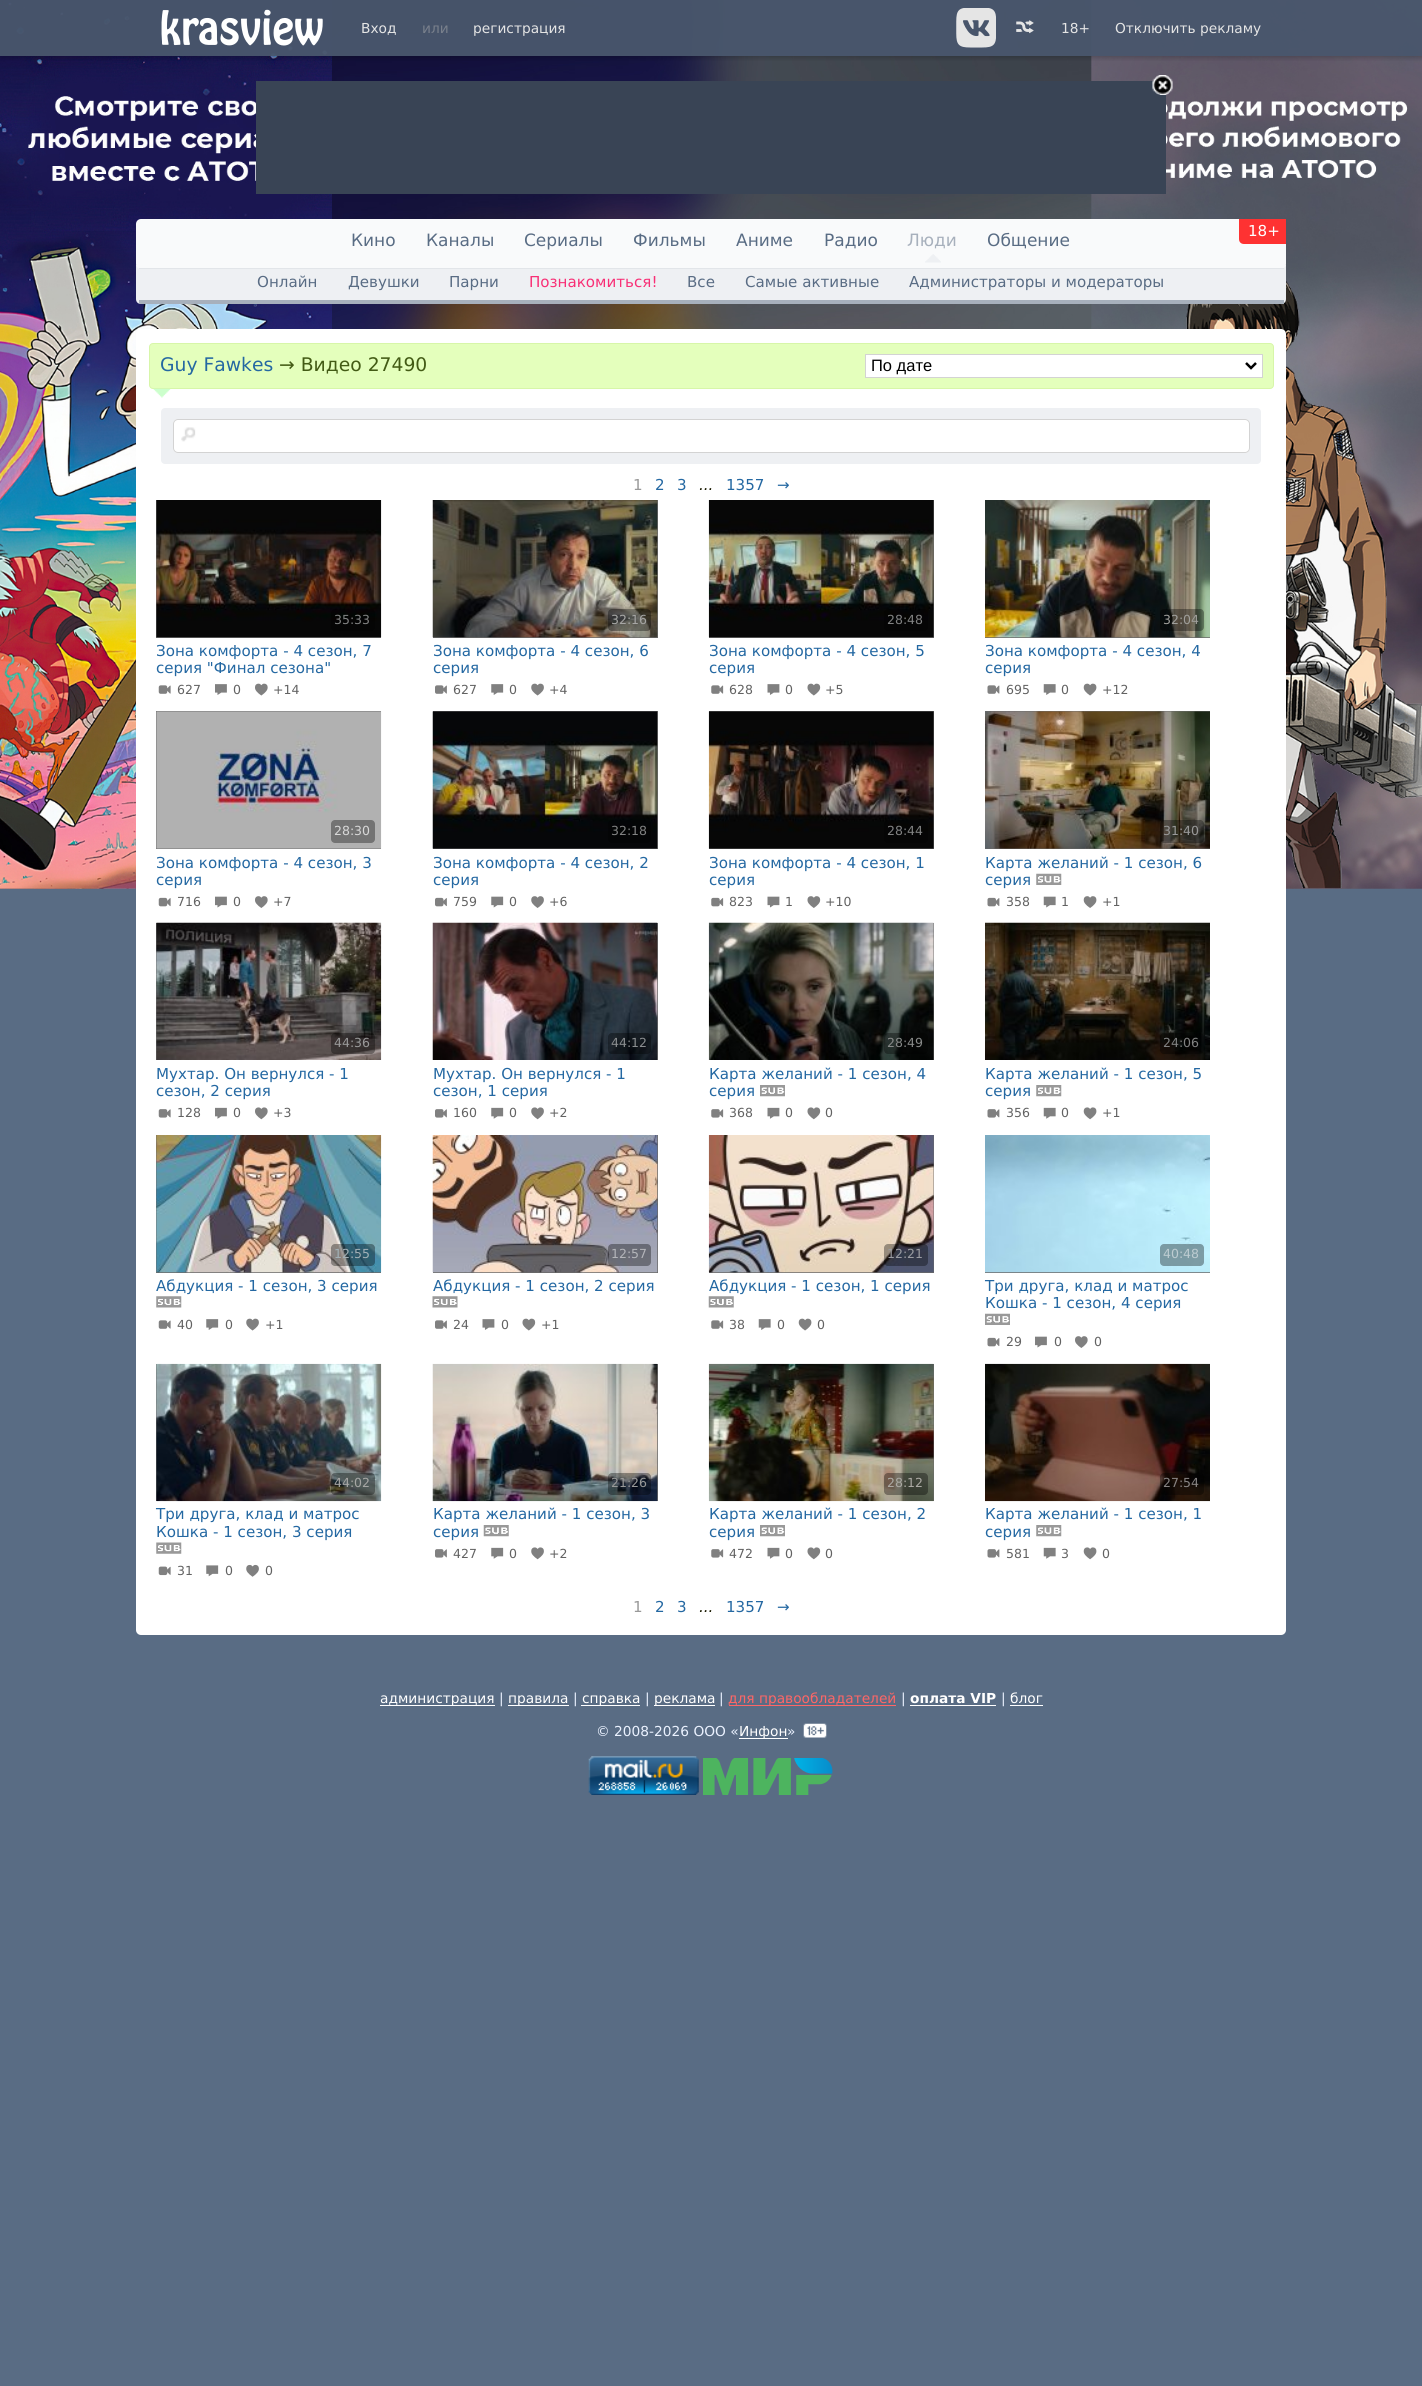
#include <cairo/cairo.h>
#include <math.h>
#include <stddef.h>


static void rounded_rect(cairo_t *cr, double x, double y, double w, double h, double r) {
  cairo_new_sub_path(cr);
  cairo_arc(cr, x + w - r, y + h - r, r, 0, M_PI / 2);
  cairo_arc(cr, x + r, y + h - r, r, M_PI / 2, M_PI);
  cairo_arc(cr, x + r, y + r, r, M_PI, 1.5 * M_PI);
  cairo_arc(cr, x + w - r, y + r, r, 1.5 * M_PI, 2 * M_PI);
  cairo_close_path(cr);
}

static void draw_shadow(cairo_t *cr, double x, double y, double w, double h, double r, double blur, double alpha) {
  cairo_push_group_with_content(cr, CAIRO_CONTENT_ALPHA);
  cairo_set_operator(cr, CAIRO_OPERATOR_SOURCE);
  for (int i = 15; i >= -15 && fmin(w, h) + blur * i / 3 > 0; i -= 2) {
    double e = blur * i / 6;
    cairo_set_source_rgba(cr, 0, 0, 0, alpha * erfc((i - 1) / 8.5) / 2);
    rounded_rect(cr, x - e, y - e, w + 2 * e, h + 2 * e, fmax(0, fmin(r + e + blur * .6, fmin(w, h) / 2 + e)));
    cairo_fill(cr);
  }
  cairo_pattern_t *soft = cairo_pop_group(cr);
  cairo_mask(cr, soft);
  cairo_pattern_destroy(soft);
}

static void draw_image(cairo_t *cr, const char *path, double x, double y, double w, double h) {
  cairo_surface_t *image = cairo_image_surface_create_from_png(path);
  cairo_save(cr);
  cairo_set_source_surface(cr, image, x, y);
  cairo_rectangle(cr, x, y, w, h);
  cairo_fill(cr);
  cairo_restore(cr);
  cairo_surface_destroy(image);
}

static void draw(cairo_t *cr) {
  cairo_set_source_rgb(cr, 89 / 255.0, 108 / 255.0, 132 / 255.0);
  cairo_paint(cr);
  draw_image(cr, "images/1.png", 0, 0, 1422, 889);
  cairo_save(cr);
  cairo_rectangle(cr, 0, 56, 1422, 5);
  cairo_clip(cr);
  cairo_set_source_rgb(cr, 0, 0, 0);
  draw_shadow(cr, 0, 1, 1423, 57, 0, 2.5, 0.2);
  cairo_restore(cr);
  cairo_set_source_rgba(cr, 73 / 255.0, 87 / 255.0, 109 / 255.0, 0.95);
  cairo_rectangle(cr, 0, 0, 1422, 56);
  cairo_fill(cr);
  draw_image(cr, "images/2.png", 161, 9, 162, 37);
  draw_image(cr, "images/3.png", 956, 8, 40, 40);
  draw_image(cr, "images/4.png", 1016, 20, 18, 14);
  cairo_set_source_rgb(cr, 57 / 255.0, 68 / 255.0, 85 / 255.0);
  cairo_rectangle(cr, 256, 81, 910, 113);
  cairo_fill(cr);
  draw_image(cr, "images/5.png", 1152, 75, 21, 20);
  cairo_set_source_rgb(cr, 238 / 255.0, 240 / 255.0, 243 / 255.0);
  cairo_new_path(cr);
  cairo_move_to(cr, 136, 265);
  cairo_line_to(cr, 1286, 265);
  cairo_line_to(cr, 1286, 299);
  cairo_curve_to(cr, 1286, 302, 1284, 304, 1281, 304);
  cairo_line_to(cr, 141, 304);
  cairo_curve_to(cr, 138, 304, 136, 302, 136, 299);
  cairo_close_path(cr);
  cairo_fill(cr);
  cairo_set_source_rgb(cr, 249 / 255.0, 250 / 255.0, 251 / 255.0);
  rounded_rect(cr, 136, 219, 1150, 50, 5);
  cairo_fill(cr);
  cairo_set_source_rgb(cr, 226 / 255.0, 229 / 255.0, 233 / 255.0);
  cairo_rectangle(cr, 139, 268, 1145, 1);
  cairo_fill(cr);
  cairo_set_source_rgb(cr, 254 / 255.0, 50 / 255.0, 50 / 255.0);
  cairo_new_path(cr);
  cairo_move_to(cr, 1239, 219);
  cairo_line_to(cr, 1286, 219);
  cairo_line_to(cr, 1286, 244);
  cairo_line_to(cr, 1244, 244);
  cairo_curve_to(cr, 1241, 244, 1239, 242, 1239, 239);
  cairo_close_path(cr);
  cairo_fill(cr);
  draw_image(cr, "images/6.png", 925, 254, 16, 9);
  cairo_set_source_rgb(cr, 167 / 255.0, 176 / 255.0, 188 / 255.0);
  cairo_rectangle(cr, 139, 300, 1145, 4);
  cairo_fill(cr);
  cairo_set_source_rgb(cr, 1, 1, 1);
  rounded_rect(cr, 136, 329, 1150, 1306, 5);
  cairo_fill(cr);
  cairo_set_source_rgb(cr, 228 / 255.0, 1, 188 / 255.0);
  rounded_rect(cr, 149.5, 343.5, 1124, 45, 3.5);
  cairo_fill_preserve(cr);
  cairo_set_source_rgb(cr, 215 / 255.0, 246 / 255.0, 169 / 255.0);
  cairo_set_line_width(cr, 1);
  cairo_stroke(cr);
  cairo_set_source_rgb(cr, 1, 1, 1);
  cairo_rectangle(cr, 865.5, 354.5, 397, 23);
  cairo_fill_preserve(cr);
  cairo_set_source_rgb(cr, 211 / 255.0, 211 / 255.0, 211 / 255.0);
  cairo_stroke(cr);
  cairo_new_path(cr);
  cairo_move_to(cr, 1246, 363);
  cairo_line_to(cr, 1251, 368);
  cairo_line_to(cr, 1256, 363);
  cairo_set_source_rgb(cr, 0, 0, 0);
  cairo_set_line_width(cr, 2.5);
  cairo_stroke(cr);
  draw_image(cr, "images/7.png", 153, 388, 18, 10);
  cairo_set_source_rgb(cr, 238 / 255.0, 240 / 255.0, 243 / 255.0);
  rounded_rect(cr, 161, 408, 1100, 56, 4);
  cairo_fill(cr);
  cairo_set_source_rgb(cr, 1, 1, 1);
  rounded_rect(cr, 173, 419, 1077, 34, 5);
  cairo_fill(cr);
  draw_image(cr, "images/8.png", 181, 427, 15, 15);
  rounded_rect(cr, 173.5, 419.5, 1076, 33, 4.5);
  cairo_set_source_rgb(cr, 211 / 255.0, 211 / 255.0, 211 / 255.0);
  cairo_set_line_width(cr, 1);
  cairo_stroke(cr);
  cairo_set_source_rgb(cr, 105 / 255.0, 105 / 255.0, 105 / 255.0);
  cairo_rectangle(cr, 156, 500, 225, 138);
  cairo_fill(cr);
  draw_image(cr, "images/9.png", 156, 500, 226, 138);
  cairo_set_source_rgba(cr, 0, 0, 0, 0.35);
  rounded_rect(cr, 331, 609, 44, 22, 4);
  cairo_fill(cr);
  draw_image(cr, "images/10.png", 158, 685, 13, 9);
  draw_image(cr, "images/11.png", 215, 684, 12, 11);
  draw_image(cr, "images/12.png", 255, 683, 13, 13);
  cairo_set_source_rgb(cr, 105 / 255.0, 105 / 255.0, 105 / 255.0);
  cairo_rectangle(cr, 433, 500, 225, 138);
  cairo_fill(cr);
  draw_image(cr, "images/13.png", 432, 500, 226, 138);
  cairo_set_source_rgba(cr, 0, 0, 0, 0.35);
  rounded_rect(cr, 608, 609, 43, 22, 4);
  cairo_fill(cr);
  draw_image(cr, "images/14.png", 435, 685, 12, 9);
  draw_image(cr, "images/15.png", 491, 684, 13, 11);
  draw_image(cr, "images/16.png", 531, 683, 13, 13);
  cairo_set_source_rgb(cr, 105 / 255.0, 105 / 255.0, 105 / 255.0);
  cairo_rectangle(cr, 709, 500, 225, 138);
  cairo_fill(cr);
  draw_image(cr, "images/17.png", 708, 500, 226, 138);
  cairo_set_source_rgba(cr, 0, 0, 0, 0.35);
  rounded_rect(cr, 884, 609, 44, 22, 4);
  cairo_fill(cr);
  draw_image(cr, "images/18.png", 711, 685, 13, 9);
  draw_image(cr, "images/19.png", 767, 684, 13, 11);
  draw_image(cr, "images/20.png", 807, 683, 14, 13);
  cairo_set_source_rgb(cr, 105 / 255.0, 105 / 255.0, 105 / 255.0);
  cairo_rectangle(cr, 985, 637, 225, 1);
  cairo_fill(cr);
  draw_image(cr, "images/21.png", 985, 500, 225, 138);
  cairo_set_source_rgba(cr, 0, 0, 0, 0.35);
  rounded_rect(cr, 1160, 609, 44, 22, 4);
  cairo_fill(cr);
  draw_image(cr, "images/22.png", 987, 685, 13, 9);
  draw_image(cr, "images/23.png", 1043, 684, 13, 11);
  draw_image(cr, "images/24.png", 1083, 683, 14, 13);
  cairo_set_source_rgb(cr, 105 / 255.0, 105 / 255.0, 105 / 255.0);
  cairo_rectangle(cr, 156, 711, 225, 138);
  cairo_fill(cr);
  draw_image(cr, "images/25.png", 156, 711, 226, 138);
  cairo_set_source_rgb(cr, 115 / 255.0, 115 / 255.0, 115 / 255.0);
  rounded_rect(cr, 331, 820, 44, 23, 4);
  cairo_fill(cr);
  draw_image(cr, "images/26.png", 158, 897, 13, 10);
  draw_image(cr, "images/27.png", 215, 896, 12, 12);
  draw_image(cr, "images/28.png", 255, 896, 13, 12);
  cairo_set_source_rgb(cr, 105 / 255.0, 105 / 255.0, 105 / 255.0);
  cairo_rectangle(cr, 433, 711, 225, 138);
  cairo_fill(cr);
  draw_image(cr, "images/29.png", 432, 711, 226, 138);
  cairo_set_source_rgba(cr, 0, 0, 0, 0.35);
  rounded_rect(cr, 608, 820, 43, 23, 4);
  cairo_fill(cr);
  draw_image(cr, "images/30.png", 435, 897, 12, 10);
  draw_image(cr, "images/31.png", 491, 896, 13, 12);
  draw_image(cr, "images/32.png", 531, 896, 13, 12);
  cairo_set_source_rgb(cr, 105 / 255.0, 105 / 255.0, 105 / 255.0);
  cairo_rectangle(cr, 709, 711, 225, 138);
  cairo_fill(cr);
  draw_image(cr, "images/33.png", 708, 711, 226, 138);
  cairo_set_source_rgba(cr, 0, 0, 0, 0.35);
  rounded_rect(cr, 884, 820, 44, 23, 4);
  cairo_fill(cr);
  draw_image(cr, "images/34.png", 711, 897, 13, 10);
  draw_image(cr, "images/35.png", 767, 896, 13, 12);
  draw_image(cr, "images/36.png", 807, 896, 14, 12);
  cairo_set_source_rgb(cr, 105 / 255.0, 105 / 255.0, 105 / 255.0);
  cairo_rectangle(cr, 985, 711, 225, 138);
  cairo_fill(cr);
  draw_image(cr, "images/37.png", 985, 711, 225, 138);
  cairo_set_source_rgba(cr, 0, 0, 0, 0.35);
  rounded_rect(cr, 1160, 820, 44, 23, 4);
  cairo_fill(cr);
  draw_image(cr, "images/38.png", 1036, 873, 26, 12);
  draw_image(cr, "images/39.png", 987, 897, 13, 10);
  draw_image(cr, "images/40.png", 1043, 896, 13, 12);
  draw_image(cr, "images/41.png", 1083, 896, 14, 12);
  cairo_set_source_rgb(cr, 105 / 255.0, 105 / 255.0, 105 / 255.0);
  cairo_rectangle(cr, 156, 923, 1, 137);
  cairo_fill(cr);
  draw_image(cr, "images/42.png", 156, 922, 226, 138);
  cairo_set_source_rgba(cr, 0, 0, 0, 0.35);
  rounded_rect(cr, 331, 1033, 44, 21, 4);
  cairo_fill(cr);
  draw_image(cr, "images/43.png", 158, 1109, 13, 9);
  draw_image(cr, "images/44.png", 215, 1107, 12, 12);
  draw_image(cr, "images/45.png", 255, 1107, 13, 13);
  cairo_set_source_rgb(cr, 105 / 255.0, 105 / 255.0, 105 / 255.0);
  cairo_rectangle(cr, 657, 923, 1, 137);
  cairo_fill(cr);
  draw_image(cr, "images/46.png", 432, 922, 226, 138);
  cairo_set_source_rgba(cr, 0, 0, 0, 0.35);
  rounded_rect(cr, 608, 1033, 43, 21, 4);
  cairo_fill(cr);
  draw_image(cr, "images/47.png", 435, 1109, 12, 9);
  draw_image(cr, "images/48.png", 491, 1107, 13, 12);
  draw_image(cr, "images/49.png", 531, 1107, 13, 13);
  cairo_set_source_rgb(cr, 105 / 255.0, 105 / 255.0, 105 / 255.0);
  cairo_rectangle(cr, 933, 923, 1, 137);
  cairo_fill(cr);
  draw_image(cr, "images/50.png", 708, 922, 226, 138);
  cairo_set_source_rgba(cr, 0, 0, 0, 0.35);
  rounded_rect(cr, 884, 1033, 44, 21, 4);
  cairo_fill(cr);
  draw_image(cr, "images/51.png", 760, 1085, 25, 12);
  draw_image(cr, "images/52.png", 711, 1109, 13, 9);
  draw_image(cr, "images/53.png", 767, 1107, 13, 12);
  draw_image(cr, "images/54.png", 807, 1107, 14, 13);
  draw_image(cr, "images/55.png", 985, 922, 225, 138);
  rounded_rect(cr, 1160, 1033, 44, 21, 4);
  cairo_fill(cr);
  draw_image(cr, "images/56.png", 1036, 1085, 26, 12);
  draw_image(cr, "images/57.png", 987, 1109, 13, 9);
  draw_image(cr, "images/58.png", 1043, 1107, 13, 12);
  draw_image(cr, "images/59.png", 1083, 1107, 14, 13);
  cairo_set_source_rgb(cr, 105 / 255.0, 105 / 255.0, 105 / 255.0);
  cairo_rectangle(cr, 156, 1135, 225, 138);
  cairo_fill(cr);
  draw_image(cr, "images/60.png", 156, 1135, 226, 138);
  cairo_set_source_rgba(cr, 0, 0, 0, 0.35);
  rounded_rect(cr, 331, 1244, 44, 22, 4);
  cairo_fill(cr);
  draw_image(cr, "images/61.png", 156, 1296, 26, 12);
  draw_image(cr, "images/10.png", 158, 1320, 13, 9);
  draw_image(cr, "images/15.png", 206, 1319, 13, 11);
  draw_image(cr, "images/16.png", 246, 1318, 13, 13);
  cairo_set_source_rgb(cr, 105 / 255.0, 105 / 255.0, 105 / 255.0);
  cairo_rectangle(cr, 433, 1135, 225, 138);
  cairo_fill(cr);
  draw_image(cr, "images/62.png", 432, 1135, 226, 138);
  cairo_set_source_rgba(cr, 0, 0, 0, 0.35);
  rounded_rect(cr, 608, 1244, 43, 22, 4);
  cairo_fill(cr);
  draw_image(cr, "images/63.png", 432, 1296, 26, 12);
  draw_image(cr, "images/14.png", 435, 1320, 12, 9);
  draw_image(cr, "images/19.png", 482, 1319, 13, 11);
  draw_image(cr, "images/20.png", 522, 1318, 14, 13);
  cairo_set_source_rgb(cr, 105 / 255.0, 105 / 255.0, 105 / 255.0);
  cairo_rectangle(cr, 709, 1135, 225, 138);
  cairo_fill(cr);
  draw_image(cr, "images/64.png", 708, 1135, 226, 138);
  cairo_set_source_rgba(cr, 0, 0, 0, 0.35);
  rounded_rect(cr, 884, 1244, 44, 22, 4);
  cairo_fill(cr);
  draw_image(cr, "images/65.png", 708, 1296, 26, 12);
  draw_image(cr, "images/18.png", 711, 1320, 13, 9);
  draw_image(cr, "images/23.png", 758, 1319, 13, 11);
  draw_image(cr, "images/24.png", 798, 1318, 14, 13);
  cairo_set_source_rgb(cr, 105 / 255.0, 105 / 255.0, 105 / 255.0);
  cairo_rectangle(cr, 985, 1272, 225, 1);
  cairo_fill(cr);
  draw_image(cr, "images/66.png", 985, 1135, 225, 138);
  cairo_set_source_rgba(cr, 0, 0, 0, 0.35);
  rounded_rect(cr, 1160, 1244, 44, 22, 4);
  cairo_fill(cr);
  draw_image(cr, "images/67.png", 985, 1313, 25, 12);
  draw_image(cr, "images/39.png", 987, 1337, 13, 10);
  draw_image(cr, "images/27.png", 1035, 1336, 12, 12);
  draw_image(cr, "images/28.png", 1075, 1336, 13, 12);
  cairo_set_source_rgb(cr, 105 / 255.0, 105 / 255.0, 105 / 255.0);
  cairo_rectangle(cr, 156, 1364, 1, 137);
  cairo_fill(cr);
  draw_image(cr, "images/68.png", 156, 1363, 226, 139);
  cairo_set_source_rgba(cr, 0, 0, 0, 0.35);
  rounded_rect(cr, 331, 1473, 44, 22, 4);
  cairo_fill(cr);
  draw_image(cr, "images/69.png", 156, 1542, 26, 12);
  draw_image(cr, "images/70.png", 158, 1566, 13, 10);
  draw_image(cr, "images/71.png", 206, 1565, 13, 12);
  draw_image(cr, "images/72.png", 246, 1564, 13, 13);
  cairo_set_source_rgb(cr, 105 / 255.0, 105 / 255.0, 105 / 255.0);
  cairo_rectangle(cr, 657, 1364, 1, 137);
  cairo_fill(cr);
  draw_image(cr, "images/73.png", 432, 1363, 226, 139);
  cairo_set_source_rgba(cr, 0, 0, 0, 0.35);
  rounded_rect(cr, 608, 1473, 43, 22, 4);
  cairo_fill(cr);
  draw_image(cr, "images/74.png", 483, 1525, 26, 12);
  draw_image(cr, "images/47.png", 435, 1549, 12, 9);
  draw_image(cr, "images/48.png", 491, 1547, 13, 12);
  draw_image(cr, "images/49.png", 531, 1547, 13, 13);
  cairo_set_source_rgb(cr, 105 / 255.0, 105 / 255.0, 105 / 255.0);
  cairo_rectangle(cr, 933, 1364, 1, 137);
  cairo_fill(cr);
  draw_image(cr, "images/75.png", 708, 1363, 226, 139);
  cairo_set_source_rgba(cr, 0, 0, 0, 0.35);
  rounded_rect(cr, 884, 1473, 44, 22, 4);
  cairo_fill(cr);
  draw_image(cr, "images/51.png", 760, 1525, 25, 12);
  draw_image(cr, "images/52.png", 711, 1549, 13, 9);
  draw_image(cr, "images/53.png", 767, 1547, 13, 12);
  draw_image(cr, "images/54.png", 807, 1547, 14, 13);
  draw_image(cr, "images/76.png", 985, 1363, 225, 139);
  rounded_rect(cr, 1160, 1473, 44, 22, 4);
  cairo_fill(cr);
  draw_image(cr, "images/56.png", 1036, 1525, 26, 12);
  draw_image(cr, "images/57.png", 987, 1549, 13, 9);
  draw_image(cr, "images/58.png", 1043, 1547, 13, 12);
  draw_image(cr, "images/59.png", 1083, 1547, 14, 13);
  cairo_set_source_rgb(cr, 1, 1, 1);
  cairo_rectangle(cr, 380, 1705, 115, 1);
  cairo_fill(cr);
  cairo_rectangle(cr, 508, 1705, 61, 1);
  cairo_fill(cr);
  cairo_rectangle(cr, 581, 1705, 59, 1);
  cairo_fill(cr);
  cairo_rectangle(cr, 654, 1705, 61, 1);
  cairo_fill(cr);
  cairo_set_source_rgb(cr, 1, 102 / 255.0, 102 / 255.0);
  cairo_rectangle(cr, 729, 1705, 167, 1);
  cairo_fill(cr);
  cairo_set_source_rgb(cr, 1, 1, 1);
  cairo_rectangle(cr, 910, 1705, 86, 1);
  cairo_fill(cr);
  cairo_rectangle(cr, 1010, 1705, 33, 1);
  cairo_fill(cr);
  cairo_rectangle(cr, 739, 1738, 49, 1);
  cairo_fill(cr);
  draw_image(cr, "images/77.png", 803, 1723, 24, 15);
  draw_image(cr, "images/78.png", 588, 1756, 111, 39);
  draw_image(cr, "images/79.png", 703, 1758, 130, 37);
  cairo_select_font_face(cr, "DejaVu Sans", CAIRO_FONT_SLANT_NORMAL, CAIRO_FONT_WEIGHT_NORMAL);
  cairo_set_font_size(cr, 13.75);
  cairo_set_source_rgb(cr, 229 / 255.0, 229 / 255.0, 229 / 255.0);
  cairo_move_to(cr, 361, 33);
  cairo_show_text(cr, "Вход");
  cairo_set_source_rgb(cr, 121 / 255.0, 128 / 255.0, 140 / 255.0);
  cairo_move_to(cr, 422, 33);
  cairo_show_text(cr, "или");
  cairo_set_source_rgb(cr, 229 / 255.0, 229 / 255.0, 229 / 255.0);
  cairo_move_to(cr, 473, 33);
  cairo_show_text(cr, "регистрация");
  cairo_move_to(cr, 1061, 33);
  cairo_show_text(cr, "18+");
  cairo_move_to(cr, 1115, 33);
  cairo_show_text(cr, "Отключить рекламу");
  cairo_set_font_size(cr, 15.1);
  cairo_set_source_rgb(cr, 1, 1, 1);
  cairo_move_to(cr, 1248, 236);
  cairo_show_text(cr, "18+");
  cairo_set_font_size(cr, 17);
  cairo_set_source_rgb(cr, 89 / 255.0, 108 / 255.0, 132 / 255.0);
  cairo_move_to(cr, 351, 246);
  cairo_show_text(cr, "Кино");
  cairo_move_to(cr, 426, 246);
  cairo_show_text(cr, "Каналы");
  cairo_move_to(cr, 524, 246);
  cairo_show_text(cr, "Сериалы");
  cairo_move_to(cr, 633, 246);
  cairo_show_text(cr, "Фильмы");
  cairo_move_to(cr, 736, 246);
  cairo_show_text(cr, "Аниме");
  cairo_move_to(cr, 824, 246);
  cairo_show_text(cr, "Радио");
  cairo_set_source_rgb(cr, 167 / 255.0, 176 / 255.0, 188 / 255.0);
  cairo_move_to(cr, 907, 246);
  cairo_show_text(cr, "Люди");
  cairo_set_source_rgb(cr, 89 / 255.0, 108 / 255.0, 132 / 255.0);
  cairo_move_to(cr, 987, 246);
  cairo_show_text(cr, "Общение");
  cairo_set_font_size(cr, 15.1);
  cairo_move_to(cr, 257, 287);
  cairo_show_text(cr, "Онлайн");
  cairo_move_to(cr, 348, 287);
  cairo_show_text(cr, "Девушки");
  cairo_move_to(cr, 449, 287);
  cairo_show_text(cr, "Парни");
  cairo_set_source_rgb(cr, 248 / 255.0, 48 / 255.0, 118 / 255.0);
  cairo_move_to(cr, 529, 287);
  cairo_show_text(cr, "Познакомиться!");
  cairo_set_source_rgb(cr, 89 / 255.0, 108 / 255.0, 132 / 255.0);
  cairo_move_to(cr, 687, 287);
  cairo_show_text(cr, "Все");
  cairo_move_to(cr, 745, 287);
  cairo_show_text(cr, "Самые активные");
  cairo_move_to(cr, 909, 287);
  cairo_show_text(cr, "Администраторы и модераторы");
  cairo_set_font_size(cr, 18.75);
  cairo_set_source_rgb(cr, 36 / 255.0, 104 / 255.0, 162 / 255.0);
  cairo_move_to(cr, 160, 371);
  cairo_show_text(cr, "Guy Fawkes");
  cairo_set_source_rgb(cr, 67 / 255.0, 91 / 255.0, 21 / 255.0);
  cairo_move_to(cr, 279, 371);
  cairo_show_text(cr, "→ Видео 27490");
  cairo_select_font_face(cr, "Liberation Sans", CAIRO_FONT_SLANT_NORMAL, CAIRO_FONT_WEIGHT_NORMAL);
  cairo_set_font_size(cr, 16.5);
  cairo_set_source_rgb(cr, 0, 0, 0);
  cairo_move_to(cr, 871, 371);
  cairo_show_text(cr, "По дате");
  cairo_select_font_face(cr, "DejaVu Sans", CAIRO_FONT_SLANT_NORMAL, CAIRO_FONT_WEIGHT_NORMAL);
  cairo_set_font_size(cr, 15.1);
  cairo_set_source_rgb(cr, 153 / 255.0, 153 / 255.0, 153 / 255.0);
  cairo_move_to(cr, 633, 490);
  cairo_show_text(cr, "1");
  cairo_set_source_rgb(cr, 36 / 255.0, 104 / 255.0, 162 / 255.0);
  cairo_move_to(cr, 655, 490);
  cairo_show_text(cr, "2");
  cairo_move_to(cr, 677, 490);
  cairo_show_text(cr, "3");
  cairo_select_font_face(cr, "DejaVu Sans", CAIRO_FONT_SLANT_ITALIC, CAIRO_FONT_WEIGHT_NORMAL);
  cairo_set_source_rgb(cr, 25 / 255.0, 25 / 255.0, 0);
  cairo_move_to(cr, 699, 490);
  cairo_show_text(cr, "...");
  cairo_select_font_face(cr, "DejaVu Sans", CAIRO_FONT_SLANT_NORMAL, CAIRO_FONT_WEIGHT_NORMAL);
  cairo_set_source_rgb(cr, 36 / 255.0, 104 / 255.0, 162 / 255.0);
  cairo_move_to(cr, 726, 490);
  cairo_show_text(cr, "1357");
  cairo_move_to(cr, 777, 490);
  cairo_show_text(cr, "→");
  cairo_set_font_size(cr, 12.5);
  cairo_set_source_rgb(cr, 129 / 255.0, 130 / 255.0, 130 / 255.0);
  cairo_move_to(cr, 334, 624);
  cairo_show_text(cr, "35:33");
  cairo_set_font_size(cr, 15.1);
  cairo_set_source_rgb(cr, 36 / 255.0, 104 / 255.0, 162 / 255.0);
  cairo_move_to(cr, 156, 656);
  cairo_show_text(cr, "Зона комфорта - 4 сезон, 7");
  cairo_move_to(cr, 156, 673);
  cairo_show_text(cr, "серия \"Финал сезона\"");
  cairo_set_font_size(cr, 12.5);
  cairo_set_source_rgb(cr, 98 / 255.0, 98 / 255.0, 98 / 255.0);
  cairo_move_to(cr, 177, 694);
  cairo_show_text(cr, "627");
  cairo_move_to(cr, 233, 694);
  cairo_show_text(cr, "0");
  cairo_move_to(cr, 273, 694);
  cairo_show_text(cr, "+14");
  cairo_set_source_rgb(cr, 166 / 255.0, 166 / 255.0, 164 / 255.0);
  cairo_move_to(cr, 611, 624);
  cairo_show_text(cr, "32:16");
  cairo_set_font_size(cr, 15.1);
  cairo_set_source_rgb(cr, 36 / 255.0, 104 / 255.0, 162 / 255.0);
  cairo_move_to(cr, 433, 656);
  cairo_show_text(cr, "Зона комфорта - 4 сезон, 6");
  cairo_move_to(cr, 433, 673);
  cairo_show_text(cr, "серия");
  cairo_set_font_size(cr, 12.5);
  cairo_set_source_rgb(cr, 98 / 255.0, 98 / 255.0, 98 / 255.0);
  cairo_move_to(cr, 453, 694);
  cairo_show_text(cr, "627");
  cairo_move_to(cr, 509, 694);
  cairo_show_text(cr, "0");
  cairo_move_to(cr, 549, 694);
  cairo_show_text(cr, "+4");
  cairo_set_source_rgb(cr, 129 / 255.0, 130 / 255.0, 130 / 255.0);
  cairo_move_to(cr, 887, 624);
  cairo_show_text(cr, "28:48");
  cairo_set_font_size(cr, 15.1);
  cairo_set_source_rgb(cr, 36 / 255.0, 104 / 255.0, 162 / 255.0);
  cairo_move_to(cr, 709, 656);
  cairo_show_text(cr, "Зона комфорта - 4 сезон, 5");
  cairo_move_to(cr, 709, 673);
  cairo_show_text(cr, "серия");
  cairo_set_font_size(cr, 12.5);
  cairo_set_source_rgb(cr, 98 / 255.0, 98 / 255.0, 98 / 255.0);
  cairo_move_to(cr, 729, 694);
  cairo_show_text(cr, "628");
  cairo_move_to(cr, 785, 694);
  cairo_show_text(cr, "0");
  cairo_move_to(cr, 825, 694);
  cairo_show_text(cr, "+5");
  cairo_set_source_rgb(cr, 160 / 255.0, 159 / 255.0, 155 / 255.0);
  cairo_move_to(cr, 1163, 624);
  cairo_show_text(cr, "32:04");
  cairo_set_font_size(cr, 15.1);
  cairo_set_source_rgb(cr, 36 / 255.0, 104 / 255.0, 162 / 255.0);
  cairo_move_to(cr, 985, 656);
  cairo_show_text(cr, "Зона комфорта - 4 сезон, 4");
  cairo_move_to(cr, 985, 673);
  cairo_show_text(cr, "серия");
  cairo_set_font_size(cr, 12.5);
  cairo_set_source_rgb(cr, 98 / 255.0, 98 / 255.0, 98 / 255.0);
  cairo_move_to(cr, 1006, 694);
  cairo_show_text(cr, "695");
  cairo_move_to(cr, 1061, 694);
  cairo_show_text(cr, "0");
  cairo_move_to(cr, 1102, 694);
  cairo_show_text(cr, "+12");
  cairo_set_source_rgb(cr, 216 / 255.0, 216 / 255.0, 216 / 255.0);
  cairo_move_to(cr, 334, 835);
  cairo_show_text(cr, "28:30");
  cairo_set_font_size(cr, 15.1);
  cairo_set_source_rgb(cr, 36 / 255.0, 104 / 255.0, 162 / 255.0);
  cairo_move_to(cr, 156, 868);
  cairo_show_text(cr, "Зона комфорта - 4 сезон, 3");
  cairo_move_to(cr, 156, 885);
  cairo_show_text(cr, "серия");
  cairo_set_font_size(cr, 12.5);
  cairo_set_source_rgb(cr, 98 / 255.0, 98 / 255.0, 98 / 255.0);
  cairo_move_to(cr, 177, 906);
  cairo_show_text(cr, "716");
  cairo_move_to(cr, 233, 906);
  cairo_show_text(cr, "0");
  cairo_move_to(cr, 273, 906);
  cairo_show_text(cr, "+7");
  cairo_set_source_rgb(cr, 129 / 255.0, 130 / 255.0, 130 / 255.0);
  cairo_move_to(cr, 611, 835);
  cairo_show_text(cr, "32:18");
  cairo_set_font_size(cr, 15.1);
  cairo_set_source_rgb(cr, 36 / 255.0, 104 / 255.0, 162 / 255.0);
  cairo_move_to(cr, 433, 868);
  cairo_show_text(cr, "Зона комфорта - 4 сезон, 2");
  cairo_move_to(cr, 433, 885);
  cairo_show_text(cr, "серия");
  cairo_set_font_size(cr, 12.5);
  cairo_set_source_rgb(cr, 98 / 255.0, 98 / 255.0, 98 / 255.0);
  cairo_move_to(cr, 453, 906);
  cairo_show_text(cr, "759");
  cairo_move_to(cr, 509, 906);
  cairo_show_text(cr, "0");
  cairo_move_to(cr, 549, 906);
  cairo_show_text(cr, "+6");
  cairo_set_source_rgb(cr, 129 / 255.0, 130 / 255.0, 130 / 255.0);
  cairo_move_to(cr, 887, 835);
  cairo_show_text(cr, "28:44");
  cairo_set_font_size(cr, 15.1);
  cairo_set_source_rgb(cr, 36 / 255.0, 104 / 255.0, 162 / 255.0);
  cairo_move_to(cr, 709, 868);
  cairo_show_text(cr, "Зона комфорта - 4 сезон, 1");
  cairo_move_to(cr, 709, 885);
  cairo_show_text(cr, "серия");
  cairo_set_font_size(cr, 12.5);
  cairo_set_source_rgb(cr, 98 / 255.0, 98 / 255.0, 98 / 255.0);
  cairo_move_to(cr, 729, 906);
  cairo_show_text(cr, "823");
  cairo_move_to(cr, 785, 906);
  cairo_show_text(cr, "1");
  cairo_move_to(cr, 825, 906);
  cairo_show_text(cr, "+10");
  cairo_set_source_rgb(cr, 153 / 255.0, 153 / 255.0, 153 / 255.0);
  cairo_move_to(cr, 1163, 835);
  cairo_show_text(cr, "31:40");
  cairo_set_font_size(cr, 15.1);
  cairo_set_source_rgb(cr, 36 / 255.0, 104 / 255.0, 162 / 255.0);
  cairo_move_to(cr, 985, 868);
  cairo_show_text(cr, "Карта желаний - 1 сезон, 6");
  cairo_move_to(cr, 985, 885);
  cairo_show_text(cr, "серия");
  cairo_set_font_size(cr, 12.5);
  cairo_set_source_rgb(cr, 98 / 255.0, 98 / 255.0, 98 / 255.0);
  cairo_move_to(cr, 1006, 906);
  cairo_show_text(cr, "358");
  cairo_move_to(cr, 1061, 906);
  cairo_show_text(cr, "1");
  cairo_move_to(cr, 1102, 906);
  cairo_show_text(cr, "+1");
  cairo_set_source_rgb(cr, 153 / 255.0, 153 / 255.0, 153 / 255.0);
  cairo_move_to(cr, 334, 1047);
  cairo_show_text(cr, "44:36");
  cairo_set_font_size(cr, 15.1);
  cairo_set_source_rgb(cr, 36 / 255.0, 104 / 255.0, 162 / 255.0);
  cairo_move_to(cr, 156, 1079);
  cairo_show_text(cr, "Мухтар. Он вернулся - 1");
  cairo_move_to(cr, 156, 1096);
  cairo_show_text(cr, "сезон, 2 серия");
  cairo_set_font_size(cr, 12.5);
  cairo_set_source_rgb(cr, 98 / 255.0, 98 / 255.0, 98 / 255.0);
  cairo_move_to(cr, 177, 1117);
  cairo_show_text(cr, "128");
  cairo_move_to(cr, 233, 1117);
  cairo_show_text(cr, "0");
  cairo_move_to(cr, 273, 1117);
  cairo_show_text(cr, "+3");
  cairo_set_source_rgb(cr, 138 / 255.0, 141 / 255.0, 143 / 255.0);
  cairo_move_to(cr, 611, 1047);
  cairo_show_text(cr, "44:12");
  cairo_set_font_size(cr, 15.1);
  cairo_set_source_rgb(cr, 36 / 255.0, 104 / 255.0, 162 / 255.0);
  cairo_move_to(cr, 433, 1079);
  cairo_show_text(cr, "Мухтар. Он вернулся - 1");
  cairo_move_to(cr, 433, 1096);
  cairo_show_text(cr, "сезон, 1 серия");
  cairo_set_font_size(cr, 12.5);
  cairo_set_source_rgb(cr, 98 / 255.0, 98 / 255.0, 98 / 255.0);
  cairo_move_to(cr, 453, 1117);
  cairo_show_text(cr, "160");
  cairo_move_to(cr, 509, 1117);
  cairo_show_text(cr, "0");
  cairo_move_to(cr, 549, 1117);
  cairo_show_text(cr, "+2");
  cairo_set_source_rgb(cr, 136 / 255.0, 138 / 255.0, 137 / 255.0);
  cairo_move_to(cr, 887, 1047);
  cairo_show_text(cr, "28:49");
  cairo_set_font_size(cr, 15.1);
  cairo_set_source_rgb(cr, 36 / 255.0, 104 / 255.0, 162 / 255.0);
  cairo_move_to(cr, 709, 1079);
  cairo_show_text(cr, "Карта желаний - 1 сезон, 4");
  cairo_move_to(cr, 709, 1096);
  cairo_show_text(cr, "серия");
  cairo_set_font_size(cr, 12.5);
  cairo_set_source_rgb(cr, 98 / 255.0, 98 / 255.0, 98 / 255.0);
  cairo_move_to(cr, 729, 1117);
  cairo_show_text(cr, "368");
  cairo_move_to(cr, 785, 1117);
  cairo_show_text(cr, "0");
  cairo_move_to(cr, 825, 1117);
  cairo_show_text(cr, "0");
  cairo_set_source_rgb(cr, 129 / 255.0, 130 / 255.0, 130 / 255.0);
  cairo_move_to(cr, 1163, 1047);
  cairo_show_text(cr, "24:06");
  cairo_set_font_size(cr, 15.1);
  cairo_set_source_rgb(cr, 36 / 255.0, 104 / 255.0, 162 / 255.0);
  cairo_move_to(cr, 985, 1079);
  cairo_show_text(cr, "Карта желаний - 1 сезон, 5");
  cairo_move_to(cr, 985, 1096);
  cairo_show_text(cr, "серия");
  cairo_set_font_size(cr, 12.5);
  cairo_set_source_rgb(cr, 98 / 255.0, 98 / 255.0, 98 / 255.0);
  cairo_move_to(cr, 1006, 1117);
  cairo_show_text(cr, "356");
  cairo_move_to(cr, 1061, 1117);
  cairo_show_text(cr, "0");
  cairo_move_to(cr, 1102, 1117);
  cairo_show_text(cr, "+1");
  cairo_set_source_rgb(cr, 162 / 255.0, 176 / 255.0, 182 / 255.0);
  cairo_move_to(cr, 334, 1258);
  cairo_show_text(cr, "12:55");
  cairo_set_font_size(cr, 15.1);
  cairo_set_source_rgb(cr, 36 / 255.0, 104 / 255.0, 162 / 255.0);
  cairo_move_to(cr, 156, 1291);
  cairo_show_text(cr, "Абдукция - 1 сезон, 3 серия");
  cairo_set_font_size(cr, 12.5);
  cairo_set_source_rgb(cr, 98 / 255.0, 98 / 255.0, 98 / 255.0);
  cairo_move_to(cr, 177, 1329);
  cairo_show_text(cr, "40");
  cairo_move_to(cr, 225, 1329);
  cairo_show_text(cr, "0");
  cairo_move_to(cr, 265, 1329);
  cairo_show_text(cr, "+1");
  cairo_set_source_rgb(cr, 180 / 255.0, 181 / 255.0, 186 / 255.0);
  cairo_move_to(cr, 611, 1258);
  cairo_show_text(cr, "12:57");
  cairo_set_font_size(cr, 15.1);
  cairo_set_source_rgb(cr, 36 / 255.0, 104 / 255.0, 162 / 255.0);
  cairo_move_to(cr, 433, 1291);
  cairo_show_text(cr, "Абдукция - 1 сезон, 2 серия");
  cairo_set_font_size(cr, 12.5);
  cairo_set_source_rgb(cr, 98 / 255.0, 98 / 255.0, 98 / 255.0);
  cairo_move_to(cr, 453, 1329);
  cairo_show_text(cr, "24");
  cairo_move_to(cr, 501, 1329);
  cairo_show_text(cr, "0");
  cairo_move_to(cr, 541, 1329);
  cairo_show_text(cr, "+1");
  cairo_set_source_rgb(cr, 155 / 255.0, 156 / 255.0, 162 / 255.0);
  cairo_move_to(cr, 887, 1258);
  cairo_show_text(cr, "12:21");
  cairo_set_font_size(cr, 15.1);
  cairo_set_source_rgb(cr, 36 / 255.0, 104 / 255.0, 162 / 255.0);
  cairo_move_to(cr, 709, 1291);
  cairo_show_text(cr, "Абдукция - 1 сезон, 1 серия");
  cairo_set_font_size(cr, 12.5);
  cairo_set_source_rgb(cr, 98 / 255.0, 98 / 255.0, 98 / 255.0);
  cairo_move_to(cr, 729, 1329);
  cairo_show_text(cr, "38");
  cairo_move_to(cr, 777, 1329);
  cairo_show_text(cr, "0");
  cairo_move_to(cr, 817, 1329);
  cairo_show_text(cr, "0");
  cairo_set_source_rgb(cr, 189 / 255.0, 204 / 255.0, 209 / 255.0);
  cairo_move_to(cr, 1163, 1258);
  cairo_show_text(cr, "40:48");
  cairo_set_font_size(cr, 15.1);
  cairo_set_source_rgb(cr, 36 / 255.0, 104 / 255.0, 162 / 255.0);
  cairo_move_to(cr, 985, 1291);
  cairo_show_text(cr, "Три друга, клад и матрос");
  cairo_move_to(cr, 985, 1308);
  cairo_show_text(cr, "Кошка - 1 сезон, 4 серия");
  cairo_set_font_size(cr, 12.5);
  cairo_set_source_rgb(cr, 98 / 255.0, 98 / 255.0, 98 / 255.0);
  cairo_move_to(cr, 1006, 1346);
  cairo_show_text(cr, "29");
  cairo_move_to(cr, 1054, 1346);
  cairo_show_text(cr, "0");
  cairo_move_to(cr, 1094, 1346);
  cairo_show_text(cr, "0");
  cairo_set_source_rgb(cr, 166 / 255.0, 166 / 255.0, 164 / 255.0);
  cairo_move_to(cr, 334, 1487);
  cairo_show_text(cr, "44:02");
  cairo_set_font_size(cr, 15.1);
  cairo_set_source_rgb(cr, 36 / 255.0, 104 / 255.0, 162 / 255.0);
  cairo_move_to(cr, 156, 1519);
  cairo_show_text(cr, "Три друга, клад и матрос");
  cairo_move_to(cr, 156, 1537);
  cairo_show_text(cr, "Кошка - 1 сезон, 3 серия");
  cairo_set_font_size(cr, 12.5);
  cairo_set_source_rgb(cr, 98 / 255.0, 98 / 255.0, 98 / 255.0);
  cairo_move_to(cr, 177, 1575);
  cairo_show_text(cr, "31");
  cairo_move_to(cr, 225, 1575);
  cairo_show_text(cr, "0");
  cairo_move_to(cr, 265, 1575);
  cairo_show_text(cr, "0");
  cairo_set_source_rgb(cr, 153 / 255.0, 153 / 255.0, 153 / 255.0);
  cairo_move_to(cr, 611, 1487);
  cairo_show_text(cr, "21:26");
  cairo_set_font_size(cr, 15.1);
  cairo_set_source_rgb(cr, 36 / 255.0, 104 / 255.0, 162 / 255.0);
  cairo_move_to(cr, 433, 1519);
  cairo_show_text(cr, "Карта желаний - 1 сезон, 3");
  cairo_move_to(cr, 433, 1537);
  cairo_show_text(cr, "серия");
  cairo_set_font_size(cr, 12.5);
  cairo_set_source_rgb(cr, 98 / 255.0, 98 / 255.0, 98 / 255.0);
  cairo_move_to(cr, 453, 1558);
  cairo_show_text(cr, "427");
  cairo_move_to(cr, 509, 1558);
  cairo_show_text(cr, "0");
  cairo_move_to(cr, 549, 1558);
  cairo_show_text(cr, "+2");
  cairo_set_source_rgb(cr, 172 / 255.0, 170 / 255.0, 164 / 255.0);
  cairo_move_to(cr, 887, 1487);
  cairo_show_text(cr, "28:12");
  cairo_set_font_size(cr, 15.1);
  cairo_set_source_rgb(cr, 36 / 255.0, 104 / 255.0, 162 / 255.0);
  cairo_move_to(cr, 709, 1519);
  cairo_show_text(cr, "Карта желаний - 1 сезон, 2");
  cairo_move_to(cr, 709, 1537);
  cairo_show_text(cr, "серия");
  cairo_set_font_size(cr, 12.5);
  cairo_set_source_rgb(cr, 98 / 255.0, 98 / 255.0, 98 / 255.0);
  cairo_move_to(cr, 729, 1558);
  cairo_show_text(cr, "472");
  cairo_move_to(cr, 785, 1558);
  cairo_show_text(cr, "0");
  cairo_move_to(cr, 825, 1558);
  cairo_show_text(cr, "0");
  cairo_set_source_rgb(cr, 136 / 255.0, 132 / 255.0, 131 / 255.0);
  cairo_move_to(cr, 1163, 1487);
  cairo_show_text(cr, "27:54");
  cairo_set_font_size(cr, 15.1);
  cairo_set_source_rgb(cr, 36 / 255.0, 104 / 255.0, 162 / 255.0);
  cairo_move_to(cr, 985, 1519);
  cairo_show_text(cr, "Карта желаний - 1 сезон, 1");
  cairo_move_to(cr, 985, 1537);
  cairo_show_text(cr, "серия");
  cairo_set_font_size(cr, 12.5);
  cairo_set_source_rgb(cr, 98 / 255.0, 98 / 255.0, 98 / 255.0);
  cairo_move_to(cr, 1006, 1558);
  cairo_show_text(cr, "581");
  cairo_move_to(cr, 1061, 1558);
  cairo_show_text(cr, "3");
  cairo_move_to(cr, 1102, 1558);
  cairo_show_text(cr, "0");
  cairo_set_font_size(cr, 15.1);
  cairo_set_source_rgb(cr, 153 / 255.0, 153 / 255.0, 153 / 255.0);
  cairo_move_to(cr, 633, 1612);
  cairo_show_text(cr, "1");
  cairo_set_source_rgb(cr, 36 / 255.0, 104 / 255.0, 162 / 255.0);
  cairo_move_to(cr, 655, 1612);
  cairo_show_text(cr, "2");
  cairo_move_to(cr, 677, 1612);
  cairo_show_text(cr, "3");
  cairo_select_font_face(cr, "DejaVu Sans", CAIRO_FONT_SLANT_ITALIC, CAIRO_FONT_WEIGHT_NORMAL);
  cairo_set_source_rgb(cr, 25 / 255.0, 25 / 255.0, 0);
  cairo_move_to(cr, 699, 1612);
  cairo_show_text(cr, "...");
  cairo_select_font_face(cr, "DejaVu Sans", CAIRO_FONT_SLANT_NORMAL, CAIRO_FONT_WEIGHT_NORMAL);
  cairo_set_source_rgb(cr, 36 / 255.0, 104 / 255.0, 162 / 255.0);
  cairo_move_to(cr, 726, 1612);
  cairo_show_text(cr, "1357");
  cairo_move_to(cr, 777, 1612);
  cairo_show_text(cr, "→");
  cairo_set_font_size(cr, 13.75);
  cairo_set_source_rgb(cr, 1, 1, 1);
  cairo_move_to(cr, 380, 1703);
  cairo_show_text(cr, "администрация");
  cairo_set_source_rgb(cr, 235 / 255.0, 242 / 255.0, 1);
  cairo_move_to(cr, 499, 1703);
  cairo_show_text(cr, "|");
  cairo_set_source_rgb(cr, 1, 1, 1);
  cairo_move_to(cr, 508, 1703);
  cairo_show_text(cr, "правила");
  cairo_set_source_rgb(cr, 235 / 255.0, 242 / 255.0, 1);
  cairo_move_to(cr, 573, 1703);
  cairo_show_text(cr, "|");
  cairo_set_source_rgb(cr, 1, 1, 1);
  cairo_move_to(cr, 582, 1703);
  cairo_show_text(cr, "справка");
  cairo_set_source_rgb(cr, 235 / 255.0, 242 / 255.0, 1);
  cairo_move_to(cr, 645, 1703);
  cairo_show_text(cr, "|");
  cairo_set_source_rgb(cr, 1, 1, 1);
  cairo_move_to(cr, 654, 1703);
  cairo_show_text(cr, "реклама");
  cairo_set_source_rgb(cr, 235 / 255.0, 242 / 255.0, 1);
  cairo_move_to(cr, 719, 1703);
  cairo_show_text(cr, "|");
  cairo_set_source_rgb(cr, 1, 102 / 255.0, 102 / 255.0);
  cairo_move_to(cr, 728, 1703);
  cairo_show_text(cr, "для правообладателей");
  cairo_set_source_rgb(cr, 235 / 255.0, 242 / 255.0, 1);
  cairo_move_to(cr, 901, 1703);
  cairo_show_text(cr, "|");
  cairo_select_font_face(cr, "DejaVu Sans", CAIRO_FONT_SLANT_NORMAL, CAIRO_FONT_WEIGHT_BOLD);
  cairo_set_source_rgb(cr, 1, 1, 1);
  cairo_move_to(cr, 910, 1703);
  cairo_show_text(cr, "оплата VIP");
  cairo_select_font_face(cr, "DejaVu Sans", CAIRO_FONT_SLANT_NORMAL, CAIRO_FONT_WEIGHT_NORMAL);
  cairo_set_source_rgb(cr, 235 / 255.0, 242 / 255.0, 1);
  cairo_move_to(cr, 1001, 1703);
  cairo_show_text(cr, "|");
  cairo_set_source_rgb(cr, 1, 1, 1);
  cairo_move_to(cr, 1010, 1703);
  cairo_show_text(cr, "блог");
  cairo_set_source_rgb(cr, 235 / 255.0, 242 / 255.0, 1);
  cairo_move_to(cr, 596, 1736);
  cairo_show_text(cr, "© 2008-2026 ООО «");
  cairo_set_source_rgb(cr, 1, 1, 1);
  cairo_move_to(cr, 739, 1736);
  cairo_show_text(cr, "Инфон");
  cairo_set_source_rgb(cr, 235 / 255.0, 242 / 255.0, 1);
  cairo_move_to(cr, 787, 1736);
  cairo_show_text(cr, "»");
}

int main(void) {
  cairo_surface_t *surface = cairo_image_surface_create(CAIRO_FORMAT_RGB24, 1422, 2386);
  cairo_t *cr = cairo_create(surface);
  cairo_font_options_t *options = cairo_font_options_create();
  cairo_font_options_set_hint_metrics(options, CAIRO_HINT_METRICS_OFF);
  cairo_font_options_set_hint_style(options, CAIRO_HINT_STYLE_NONE);
  cairo_set_font_options(cr, options);
  cairo_set_miter_limit(cr, 4);
  draw(cr);
  cairo_surface_write_to_png(surface, "out.png");
  cairo_font_options_destroy(options);
  cairo_destroy(cr);
  cairo_surface_destroy(surface);
  return 0;
}
